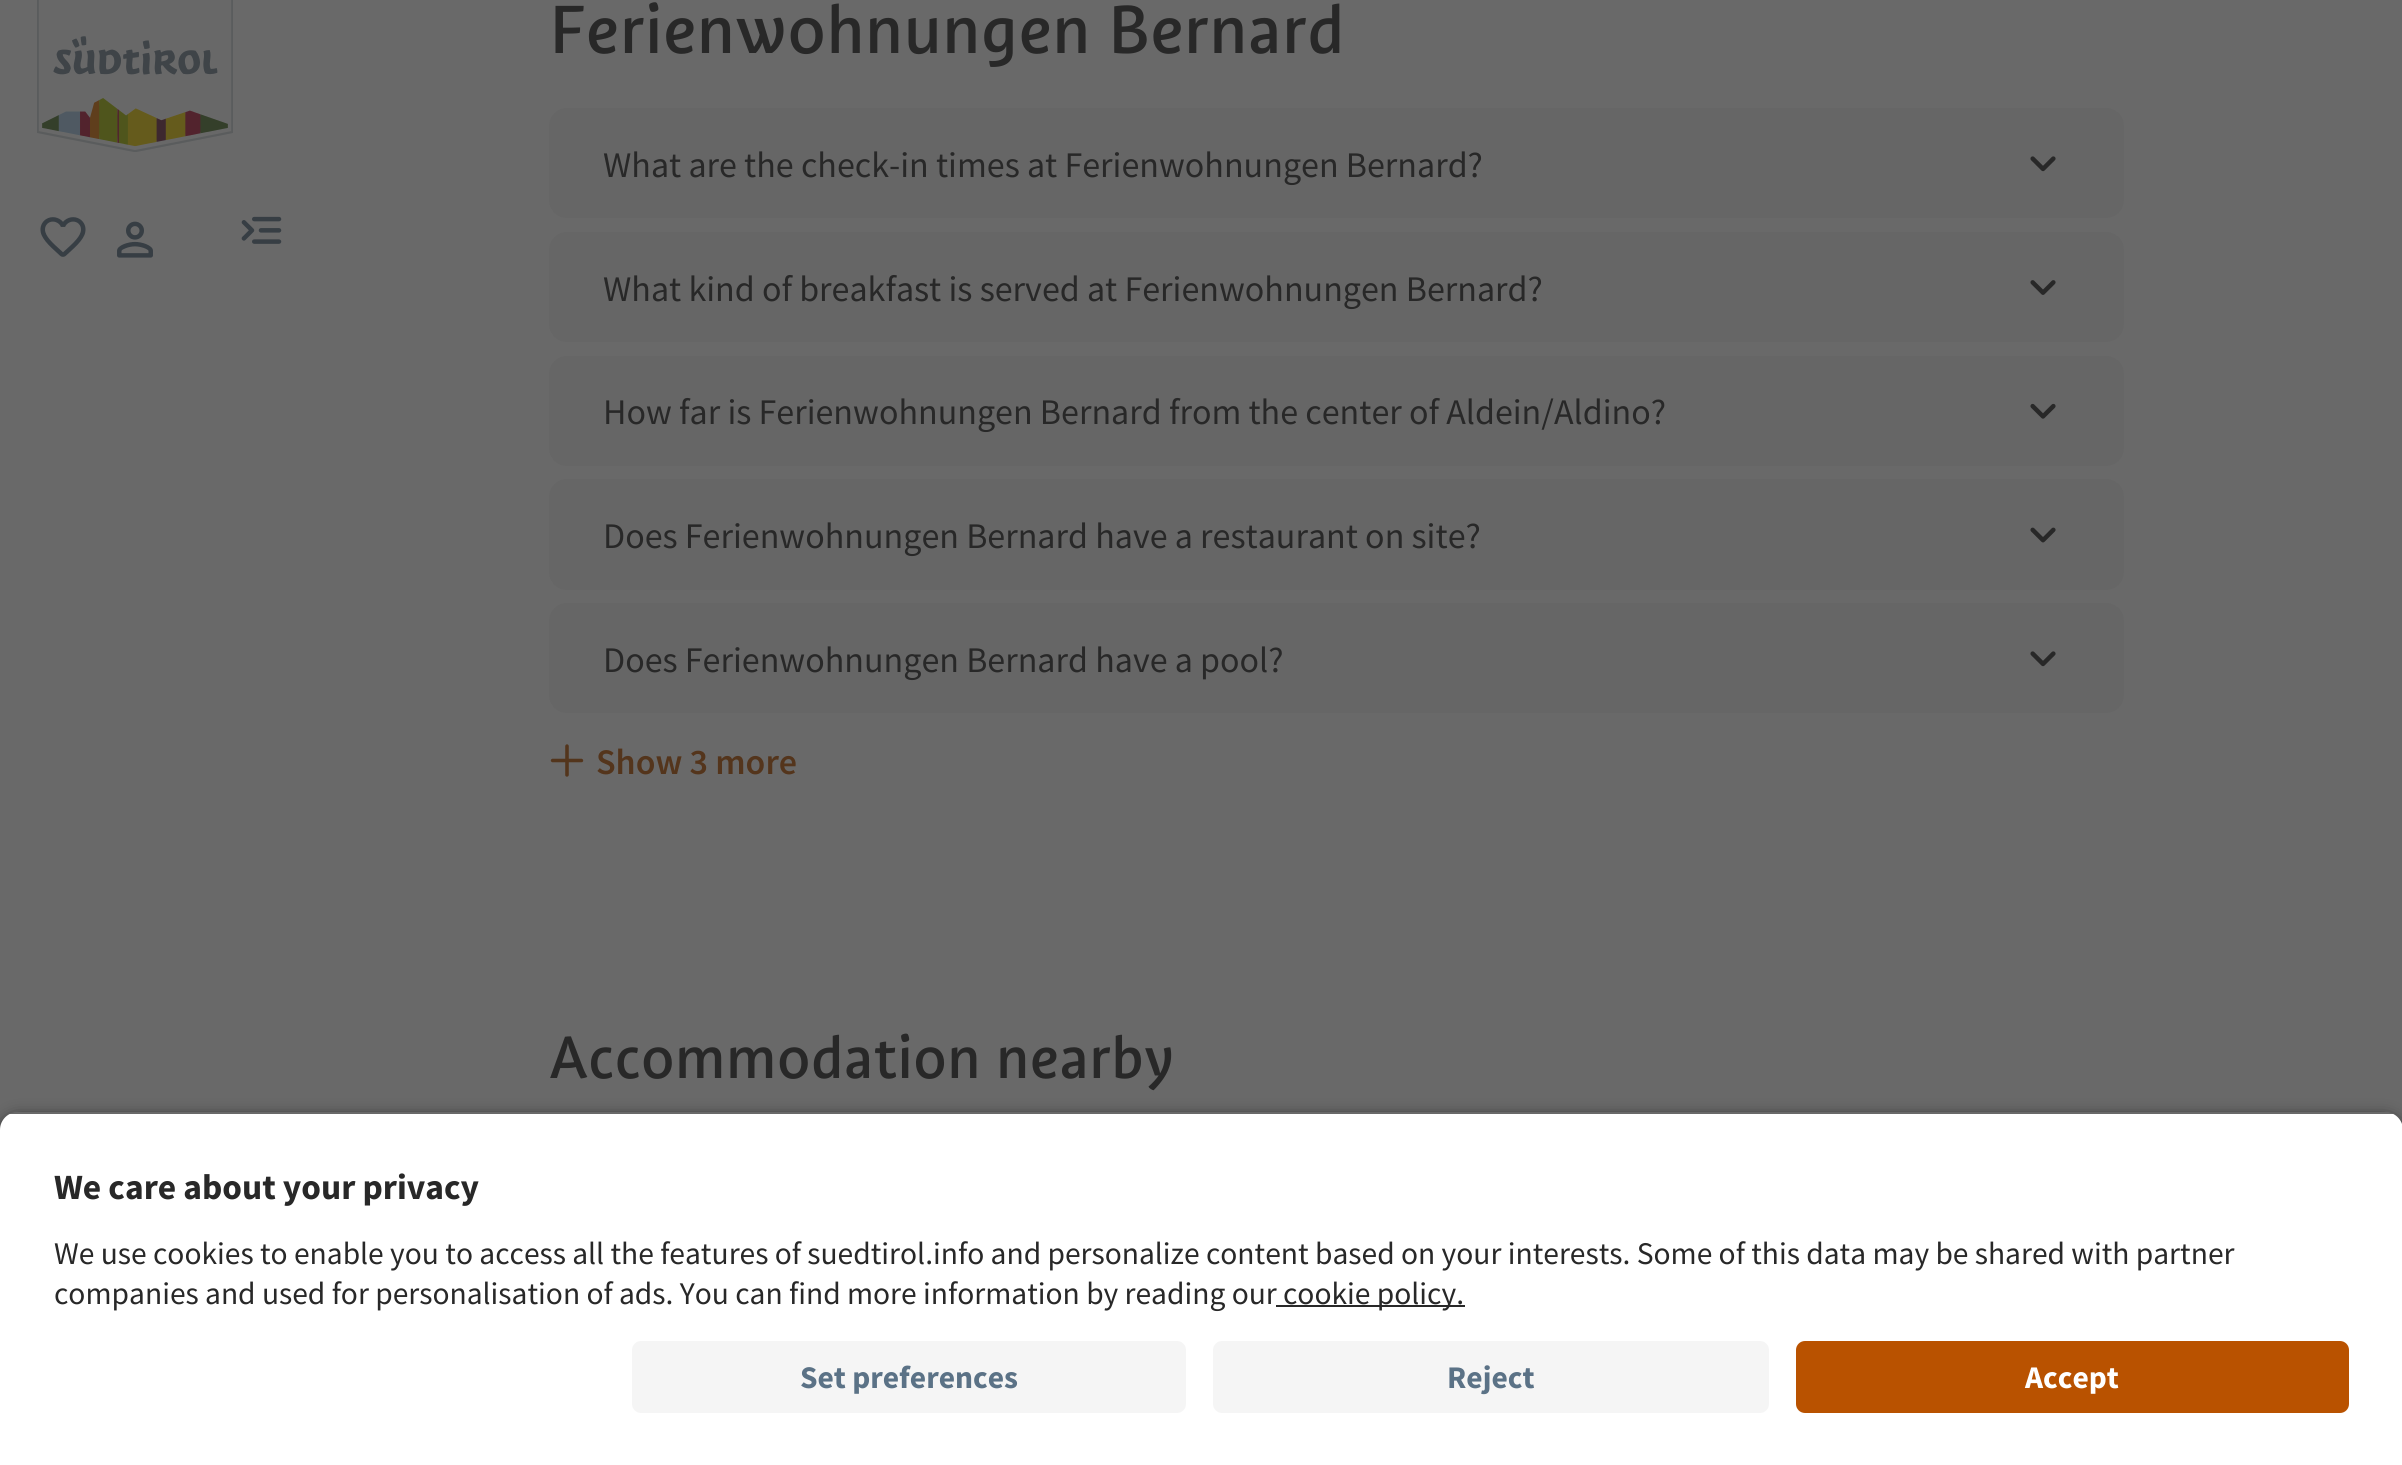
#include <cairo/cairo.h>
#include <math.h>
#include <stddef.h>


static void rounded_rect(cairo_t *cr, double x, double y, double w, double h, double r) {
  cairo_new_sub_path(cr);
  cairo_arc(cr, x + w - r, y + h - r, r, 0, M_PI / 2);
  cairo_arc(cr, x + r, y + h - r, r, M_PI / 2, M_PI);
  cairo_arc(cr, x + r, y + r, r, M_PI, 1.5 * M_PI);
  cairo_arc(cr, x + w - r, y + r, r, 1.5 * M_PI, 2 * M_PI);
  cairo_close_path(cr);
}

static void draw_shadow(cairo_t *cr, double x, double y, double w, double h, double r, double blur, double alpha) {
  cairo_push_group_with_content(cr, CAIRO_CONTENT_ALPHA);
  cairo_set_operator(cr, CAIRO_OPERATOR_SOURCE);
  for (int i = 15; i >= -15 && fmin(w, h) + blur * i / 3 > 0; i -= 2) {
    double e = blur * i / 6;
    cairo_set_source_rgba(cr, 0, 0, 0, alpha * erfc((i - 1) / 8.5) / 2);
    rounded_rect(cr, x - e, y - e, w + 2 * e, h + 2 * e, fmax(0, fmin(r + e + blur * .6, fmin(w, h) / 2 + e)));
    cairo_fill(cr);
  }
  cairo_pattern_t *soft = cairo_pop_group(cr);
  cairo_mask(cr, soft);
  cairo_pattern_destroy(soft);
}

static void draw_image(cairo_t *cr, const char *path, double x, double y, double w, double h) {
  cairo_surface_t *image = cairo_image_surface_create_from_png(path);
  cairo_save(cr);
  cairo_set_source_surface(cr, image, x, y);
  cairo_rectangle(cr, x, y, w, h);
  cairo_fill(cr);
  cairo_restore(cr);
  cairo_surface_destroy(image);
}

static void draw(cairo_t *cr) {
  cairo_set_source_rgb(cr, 105 / 255.0, 105 / 255.0, 105 / 255.0);
  cairo_paint(cr);
  draw_image(cr, "images/1.png", 37, 0, 196, 152);
  draw_image(cr, "images/2.png", 40, 217, 46, 40);
  draw_image(cr, "images/3.png", 117, 221, 36, 37);
  draw_image(cr, "images/4.png", 241, 216, 41, 28);
  cairo_set_source_rgb(cr, 102 / 255.0, 102 / 255.0, 102 / 255.0);
  rounded_rect(cr, 549, 108, 1575, 110, 18);
  cairo_fill(cr);
  draw_image(cr, "images/5.png", 2030, 156, 26, 16);
  rounded_rect(cr, 549, 232, 1575, 110, 18);
  cairo_fill(cr);
  draw_image(cr, "images/6.png", 2030, 280, 26, 15);
  rounded_rect(cr, 549, 356, 1575, 110, 18);
  cairo_fill(cr);
  draw_image(cr, "images/7.png", 2030, 403, 26, 16);
  rounded_rect(cr, 549, 479, 1575, 111, 18);
  cairo_fill(cr);
  draw_image(cr, "images/8.png", 2030, 527, 26, 16);
  rounded_rect(cr, 549, 603, 1575, 110, 18);
  cairo_fill(cr);
  draw_image(cr, "images/5.png", 2030, 651, 26, 16);
  draw_image(cr, "images/9.png", 550, 744, 34, 33);
  cairo_save(cr);
  cairo_set_fill_rule(cr, CAIRO_FILL_RULE_EVEN_ODD);
  cairo_new_path(cr);
  cairo_move_to(cr, 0, 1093);
  cairo_line_to(cr, 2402, 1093);
  cairo_line_to(cr, 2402, 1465);
  cairo_line_to(cr, 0, 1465);
  cairo_close_path(cr);
  cairo_move_to(cr, 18, 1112);
  cairo_line_to(cr, 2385, 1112);
  cairo_curve_to(cr, 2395, 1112, 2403, 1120, 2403, 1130);
  cairo_line_to(cr, 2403, 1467);
  cairo_line_to(cr, 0, 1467);
  cairo_line_to(cr, 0, 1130);
  cairo_curve_to(cr, 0, 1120, 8, 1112, 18, 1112);
  cairo_close_path(cr);
  cairo_clip(cr);
  cairo_set_source_rgb(cr, 0, 0, 0);
  draw_shadow(cr, 0, 1118, 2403, 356, 18, 8, 0.8);
  cairo_restore(cr);
  cairo_save(cr);
  cairo_new_path(cr);
  cairo_move_to(cr, 18, 1112);
  cairo_line_to(cr, 2385, 1112);
  cairo_curve_to(cr, 2395, 1112, 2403, 1120, 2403, 1130);
  cairo_line_to(cr, 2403, 1323);
  cairo_line_to(cr, 0, 1323);
  cairo_line_to(cr, 0, 1130);
  cairo_curve_to(cr, 0, 1120, 8, 1112, 18, 1112);
  cairo_close_path(cr);
  cairo_clip(cr);
  cairo_set_source_rgb(cr, 1, 1, 1);
  cairo_rectangle(cr, 0, 1114, 2402, 209);
  cairo_fill(cr);
  cairo_restore(cr);
  cairo_set_source_rgb(cr, 40 / 255.0, 40 / 255.0, 40 / 255.0);
  cairo_rectangle(cr, 1276, 1305, 189, 2);
  cairo_fill(cr);
  cairo_set_source_rgb(cr, 1, 1, 1);
  cairo_rectangle(cr, 0, 1323, 2402, 142);
  cairo_fill(cr);
  cairo_set_source_rgb(cr, 245 / 255.0, 245 / 255.0, 245 / 255.0);
  rounded_rect(cr, 632, 1341, 554, 72, 9);
  cairo_fill(cr);
  rounded_rect(cr, 1213, 1341, 556, 72, 9);
  cairo_fill(cr);
  cairo_set_source_rgb(cr, 185 / 255.0, 82 / 255.0, 0);
  rounded_rect(cr, 1796, 1341, 553, 72, 9);
  cairo_fill(cr);
  cairo_select_font_face(cr, "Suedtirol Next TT", CAIRO_FONT_SLANT_NORMAL, CAIRO_FONT_WEIGHT_NORMAL);
  cairo_set_font_size(cr, 72);
  cairo_set_source_rgb(cr, 40 / 255.0, 40 / 255.0, 40 / 255.0);
  cairo_move_to(cr, 549, 53);
  cairo_show_text(cr, "Ferienwohnungen Bernard");
  cairo_select_font_face(cr, "Source Sans Pro", CAIRO_FONT_SLANT_NORMAL, CAIRO_FONT_WEIGHT_NORMAL);
  cairo_set_font_size(cr, 36);
  cairo_move_to(cr, 603, 177);
  cairo_show_text(cr, "What are the check-in times at Ferienwohnungen Bernard?");
  cairo_move_to(cr, 603, 301);
  cairo_show_text(cr, "What kind of breakfast is served at Ferienwohnungen Bernard?");
  cairo_move_to(cr, 603, 424);
  cairo_show_text(cr, "How far is Ferienwohnungen Bernard from the center of Aldein/Aldino?");
  cairo_move_to(cr, 603, 548);
  cairo_show_text(cr, "Does Ferienwohnungen Bernard have a restaurant on site?");
  cairo_move_to(cr, 603, 672);
  cairo_show_text(cr, "Does Ferienwohnungen Bernard have a pool?");
  cairo_select_font_face(cr, "Source Sans Pro SemiBold", CAIRO_FONT_SLANT_NORMAL, CAIRO_FONT_WEIGHT_NORMAL);
  cairo_set_source_rgb(cr, 84 / 255.0, 53 / 255.0, 28 / 255.0);
  cairo_move_to(cr, 596, 774);
  cairo_show_text(cr, "Show 3 more");
  cairo_select_font_face(cr, "Suedtirol Next TT", CAIRO_FONT_SLANT_NORMAL, CAIRO_FONT_WEIGHT_NORMAL);
  cairo_set_font_size(cr, 63);
  cairo_set_source_rgb(cr, 40 / 255.0, 40 / 255.0, 40 / 255.0);
  cairo_move_to(cr, 549, 1078);
  cairo_show_text(cr, "Accommodation nearby");
  cairo_select_font_face(cr, "Source Sans Pro", CAIRO_FONT_SLANT_NORMAL, CAIRO_FONT_WEIGHT_BOLD);
  cairo_set_font_size(cr, 35.5);
  cairo_move_to(cr, 54, 1199);
  cairo_show_text(cr, "We care about your privacy");
  cairo_select_font_face(cr, "Source Sans Pro", CAIRO_FONT_SLANT_NORMAL, CAIRO_FONT_WEIGHT_NORMAL);
  cairo_set_font_size(cr, 31.5);
  cairo_move_to(cr, 54, 1264);
  cairo_show_text(cr, "We use cookies to enable you to access all the features of suedtirol.info and personalize content based on your interests. Some of this data may be shared with partner");
  cairo_move_to(cr, 54, 1304);
  cairo_show_text(cr, "companies and used for personalisation of ads. You can find more information by reading our");
  cairo_move_to(cr, 1283, 1304);
  cairo_show_text(cr, "cookie policy.");
  cairo_select_font_face(cr, "Source Sans Pro", CAIRO_FONT_SLANT_NORMAL, CAIRO_FONT_WEIGHT_BOLD);
  cairo_set_source_rgb(cr, 91 / 255.0, 114 / 255.0, 134 / 255.0);
  cairo_move_to(cr, 800, 1388);
  cairo_show_text(cr, "Set preferences");
  cairo_move_to(cr, 1447, 1388);
  cairo_show_text(cr, "Reject");
  cairo_set_source_rgb(cr, 1, 1, 1);
  cairo_move_to(cr, 2025, 1388);
  cairo_show_text(cr, "Accept");
}

int main(void) {
  cairo_surface_t *surface = cairo_image_surface_create(CAIRO_FORMAT_RGB24, 2402, 1465);
  cairo_t *cr = cairo_create(surface);
  cairo_font_options_t *options = cairo_font_options_create();
  cairo_font_options_set_hint_metrics(options, CAIRO_HINT_METRICS_OFF);
  cairo_font_options_set_hint_style(options, CAIRO_HINT_STYLE_NONE);
  cairo_set_font_options(cr, options);
  cairo_set_miter_limit(cr, 4);
  draw(cr);
  cairo_surface_write_to_png(surface, "out.png");
  cairo_font_options_destroy(options);
  cairo_destroy(cr);
  cairo_surface_destroy(surface);
  return 0;
}
